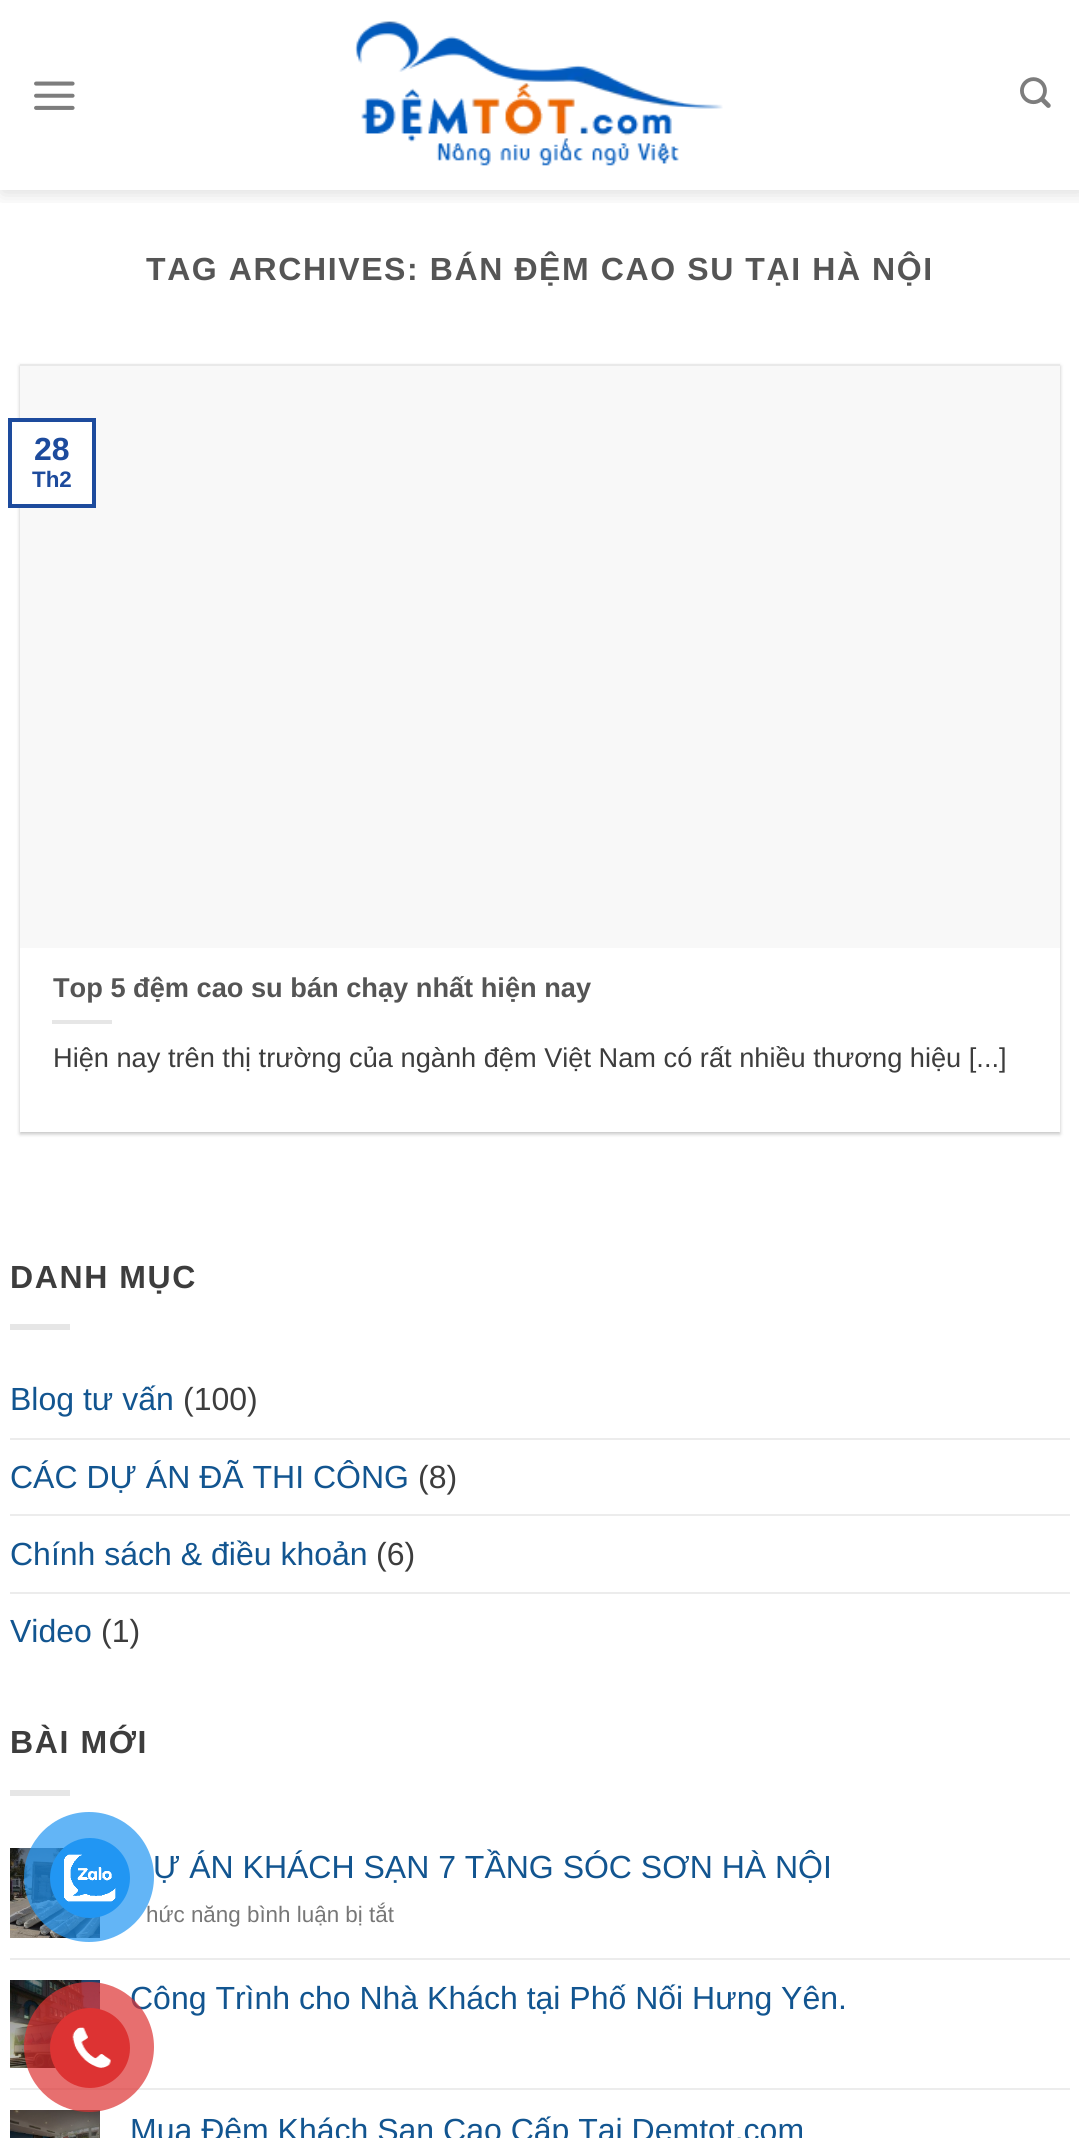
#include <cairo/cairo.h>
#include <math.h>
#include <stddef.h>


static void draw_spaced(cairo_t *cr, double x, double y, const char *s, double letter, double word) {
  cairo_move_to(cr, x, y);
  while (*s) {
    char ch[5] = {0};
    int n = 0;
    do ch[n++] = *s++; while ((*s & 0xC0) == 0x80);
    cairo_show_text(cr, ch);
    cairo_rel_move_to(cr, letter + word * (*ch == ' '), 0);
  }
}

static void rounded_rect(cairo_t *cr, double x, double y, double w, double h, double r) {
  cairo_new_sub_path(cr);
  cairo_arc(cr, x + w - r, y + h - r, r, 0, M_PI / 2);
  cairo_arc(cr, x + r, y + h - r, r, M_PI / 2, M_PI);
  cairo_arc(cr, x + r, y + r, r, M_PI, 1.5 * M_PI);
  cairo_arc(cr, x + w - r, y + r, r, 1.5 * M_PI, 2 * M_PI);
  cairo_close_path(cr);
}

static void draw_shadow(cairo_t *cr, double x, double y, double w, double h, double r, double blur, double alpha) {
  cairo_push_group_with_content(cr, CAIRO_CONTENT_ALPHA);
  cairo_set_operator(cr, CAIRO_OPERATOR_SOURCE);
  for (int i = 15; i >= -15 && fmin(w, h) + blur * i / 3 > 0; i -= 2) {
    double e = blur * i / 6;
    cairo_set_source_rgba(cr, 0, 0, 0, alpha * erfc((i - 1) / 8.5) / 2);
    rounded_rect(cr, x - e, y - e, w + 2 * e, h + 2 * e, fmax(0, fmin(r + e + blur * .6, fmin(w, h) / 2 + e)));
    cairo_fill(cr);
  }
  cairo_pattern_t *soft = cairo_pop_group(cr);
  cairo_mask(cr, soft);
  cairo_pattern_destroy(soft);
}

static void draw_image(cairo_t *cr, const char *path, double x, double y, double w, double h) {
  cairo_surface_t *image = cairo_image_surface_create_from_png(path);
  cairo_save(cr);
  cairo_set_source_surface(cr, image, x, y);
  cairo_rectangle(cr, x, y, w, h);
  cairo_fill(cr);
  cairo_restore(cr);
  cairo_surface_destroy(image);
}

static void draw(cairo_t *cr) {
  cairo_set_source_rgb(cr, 1, 1, 1);
  cairo_paint(cr);
  cairo_save(cr);
  cairo_rectangle(cr, 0, 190, 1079, 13);
  cairo_clip(cr);
  cairo_set_source_rgb(cr, 0, 0, 0);
  draw_shadow(cr, 2, 2, 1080, 190, 0, 10, 0.15);
  cairo_restore(cr);
  draw_image(cr, "images/1.png", 34, 81, 41, 29);
  draw_image(cr, "images/2.png", 355, 21, 368, 145);
  draw_image(cr, "images/3.png", 1020, 77, 31, 31);
  cairo_save(cr);
  cairo_set_fill_rule(cr, CAIRO_FILL_RULE_EVEN_ODD);
  cairo_new_path(cr);
  cairo_move_to(cr, 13, 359);
  cairo_line_to(cr, 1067, 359);
  cairo_line_to(cr, 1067, 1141);
  cairo_line_to(cr, 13, 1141);
  cairo_close_path(cr);
  cairo_move_to(cr, 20, 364);
  cairo_line_to(cr, 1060, 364);
  cairo_line_to(cr, 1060, 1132);
  cairo_line_to(cr, 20, 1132);
  cairo_close_path(cr);
  cairo_clip(cr);
  cairo_set_source_rgb(cr, 0, 0, 0);
  draw_shadow(cr, 20, 366, 1040, 768, 0, 2, 0.24);
  cairo_restore(cr);
  cairo_set_source_rgb(cr, 233 / 255.0, 233 / 255.0, 233 / 255.0);
  cairo_rectangle(cr, 20, 364, 1040, 2);
  cairo_fill(cr);
  cairo_set_source_rgb(cr, 248 / 255.0, 248 / 255.0, 248 / 255.0);
  cairo_rectangle(cr, 20, 366, 1040, 582);
  cairo_fill(cr);
  cairo_set_source_rgb(cr, 1, 1, 1);
  cairo_rectangle(cr, 17, 422, 75, 82);
  cairo_fill(cr);
  cairo_rectangle(cr, 10, 420, 84, 86);
  cairo_set_source_rgb(cr, 29 / 255.0, 75 / 255.0, 157 / 255.0);
  cairo_set_line_width(cr, 4);
  cairo_stroke(cr);
  cairo_set_source_rgb(cr, 230 / 255.0, 230 / 255.0, 230 / 255.0);
  cairo_rectangle(cr, 52, 1020, 60, 4);
  cairo_fill(cr);
  cairo_rectangle(cr, 10, 1324, 60, 6);
  cairo_fill(cr);
  cairo_set_source_rgb(cr, 236 / 255.0, 236 / 255.0, 236 / 255.0);
  cairo_rectangle(cr, 10, 1438, 1060, 2);
  cairo_fill(cr);
  cairo_rectangle(cr, 10, 1514, 1060, 2);
  cairo_fill(cr);
  cairo_rectangle(cr, 10, 1592, 1060, 2);
  cairo_fill(cr);
  cairo_set_source_rgb(cr, 230 / 255.0, 230 / 255.0, 230 / 255.0);
  cairo_rectangle(cr, 10, 1790, 60, 6);
  cairo_fill(cr);
  draw_image(cr, "images/4.png", 10, 1848, 90, 90);
  cairo_set_source_rgb(cr, 236 / 255.0, 236 / 255.0, 236 / 255.0);
  cairo_rectangle(cr, 10, 1958, 1060, 2);
  cairo_fill(cr);
  draw_image(cr, "images/5.png", 10, 1980, 90, 88);
  cairo_rectangle(cr, 10, 2088, 1060, 2);
  cairo_fill(cr);
  draw_image(cr, "images/6.png", 10, 2110, 90, 28);
  cairo_select_font_face(cr, "Liberation Sans", CAIRO_FONT_SLANT_NORMAL, CAIRO_FONT_WEIGHT_BOLD);
  cairo_set_font_size(cr, 32);
  cairo_set_source_rgb(cr, 85 / 255.0, 85 / 255.0, 85 / 255.0);
  draw_spaced(cr, 146, 280, "TAG ARCHIVES: BÁN ĐỆM CAO SU TẠI HÀ NỘI", 1.6, 0);
  cairo_set_source_rgb(cr, 29 / 255.0, 75 / 255.0, 157 / 255.0);
  cairo_move_to(cr, 34, 460);
  cairo_show_text(cr, "28");
  cairo_set_font_size(cr, 22.4);
  cairo_move_to(cr, 32, 487);
  cairo_show_text(cr, "Th2");
  cairo_set_font_size(cr, 27.2);
  cairo_set_source_rgb(cr, 85 / 255.0, 85 / 255.0, 85 / 255.0);
  cairo_move_to(cr, 53, 997);
  cairo_show_text(cr, "Top 5 đệm cao su bán chạy nhất hiện nay");
  cairo_select_font_face(cr, "Liberation Sans", CAIRO_FONT_SLANT_NORMAL, CAIRO_FONT_WEIGHT_NORMAL);
  cairo_set_source_rgb(cr, 61 / 255.0, 61 / 255.0, 61 / 255.0);
  cairo_move_to(cr, 53, 1067);
  cairo_show_text(cr, "Hiện nay trên thị trường của ngành đệm Việt Nam có rất nhiều thương hiệu [...]");
  cairo_select_font_face(cr, "Liberation Sans", CAIRO_FONT_SLANT_NORMAL, CAIRO_FONT_WEIGHT_BOLD);
  cairo_set_font_size(cr, 32);
  draw_spaced(cr, 10, 1288, "DANH MỤC", 1.6, 0);
  cairo_select_font_face(cr, "Liberation Sans", CAIRO_FONT_SLANT_NORMAL, CAIRO_FONT_WEIGHT_NORMAL);
  cairo_set_source_rgb(cr, 18 / 255.0, 85 / 255.0, 144 / 255.0);
  cairo_move_to(cr, 10, 1410);
  cairo_show_text(cr, "Blog tư vấn");
  cairo_set_source_rgb(cr, 61 / 255.0, 61 / 255.0, 61 / 255.0);
  cairo_move_to(cr, 183, 1410);
  cairo_show_text(cr, "(100)");
  cairo_set_source_rgb(cr, 18 / 255.0, 85 / 255.0, 144 / 255.0);
  cairo_move_to(cr, 10, 1488);
  cairo_show_text(cr, "CÁC DỰ ÁN ĐÃ THI CÔNG");
  cairo_set_source_rgb(cr, 61 / 255.0, 61 / 255.0, 61 / 255.0);
  cairo_move_to(cr, 418, 1488);
  cairo_show_text(cr, "(8)");
  cairo_set_source_rgb(cr, 18 / 255.0, 85 / 255.0, 144 / 255.0);
  cairo_move_to(cr, 10, 1565);
  cairo_show_text(cr, "Chính sách & điều khoản");
  cairo_set_source_rgb(cr, 61 / 255.0, 61 / 255.0, 61 / 255.0);
  cairo_move_to(cr, 376, 1565);
  cairo_show_text(cr, "(6)");
  cairo_set_source_rgb(cr, 18 / 255.0, 85 / 255.0, 144 / 255.0);
  cairo_move_to(cr, 10, 1642);
  cairo_show_text(cr, "Video");
  cairo_set_source_rgb(cr, 61 / 255.0, 61 / 255.0, 61 / 255.0);
  cairo_move_to(cr, 101, 1642);
  cairo_show_text(cr, "(1)");
  cairo_select_font_face(cr, "Liberation Sans", CAIRO_FONT_SLANT_NORMAL, CAIRO_FONT_WEIGHT_BOLD);
  draw_spaced(cr, 10, 1753, "BÀI MỚI", 1.6, 0);
  cairo_select_font_face(cr, "Liberation Sans", CAIRO_FONT_SLANT_NORMAL, CAIRO_FONT_WEIGHT_NORMAL);
  cairo_set_source_rgb(cr, 18 / 255.0, 85 / 255.0, 144 / 255.0);
  cairo_move_to(cr, 153, 1878);
  cairo_show_text(cr, "Ự ÁN KHÁCH SẠN 7 TẦNG SÓC SƠN HÀ NỘI");
  cairo_set_font_size(cr, 22.4);
  cairo_set_source_rgb(cr, 119 / 255.0, 119 / 255.0, 119 / 255.0);
  cairo_move_to(cr, 146, 1922);
  cairo_show_text(cr, "hức năng bình luận bị tắt");
  cairo_set_font_size(cr, 32);
  cairo_set_source_rgb(cr, 18 / 255.0, 85 / 255.0, 144 / 255.0);
  cairo_move_to(cr, 130, 2009);
  cairo_show_text(cr, "Công Trình cho Nhà Khách tại Phố Nối Hưng Yên.");
  cairo_move_to(cr, 130, 2141);
  cairo_show_text(cr, "Mua Đệm Khách Sạn Cao Cấp Tại Demtot.com");
  cairo_set_source_rgba(cr, 33 / 255.0, 150 / 255.0, 243 / 255.0, 0.7);
  cairo_new_path(cr);
  cairo_arc(cr, 89, 1877, 65, 0, 2 * M_PI);
  cairo_fill(cr);
  cairo_set_source_rgb(cr, 33 / 255.0, 150 / 255.0, 243 / 255.0);
  cairo_arc(cr, 90, 1878, 40, 0, 2 * M_PI);
  cairo_fill(cr);
  draw_image(cr, "images/7.png", 64, 1854, 52, 48);
  cairo_set_source_rgba(cr, 221 / 255.0, 51 / 255.0, 51 / 255.0, 0.7);
  cairo_arc(cr, 89, 2047, 65, 0, 2 * M_PI);
  cairo_fill(cr);
  cairo_set_source_rgb(cr, 221 / 255.0, 51 / 255.0, 51 / 255.0);
  cairo_arc(cr, 90, 2048, 40, 0, 2 * M_PI);
  cairo_fill(cr);
  draw_image(cr, "images/8.png", 72, 2027, 39, 41);
}

int main(void) {
  cairo_surface_t *surface = cairo_image_surface_create(CAIRO_FORMAT_RGB24, 1079, 2138);
  cairo_t *cr = cairo_create(surface);
  cairo_font_options_t *options = cairo_font_options_create();
  cairo_font_options_set_hint_metrics(options, CAIRO_HINT_METRICS_OFF);
  cairo_font_options_set_hint_style(options, CAIRO_HINT_STYLE_NONE);
  cairo_set_font_options(cr, options);
  cairo_set_miter_limit(cr, 4);
  draw(cr);
  cairo_surface_write_to_png(surface, "out.png");
  cairo_font_options_destroy(options);
  cairo_destroy(cr);
  cairo_surface_destroy(surface);
  return 0;
}
